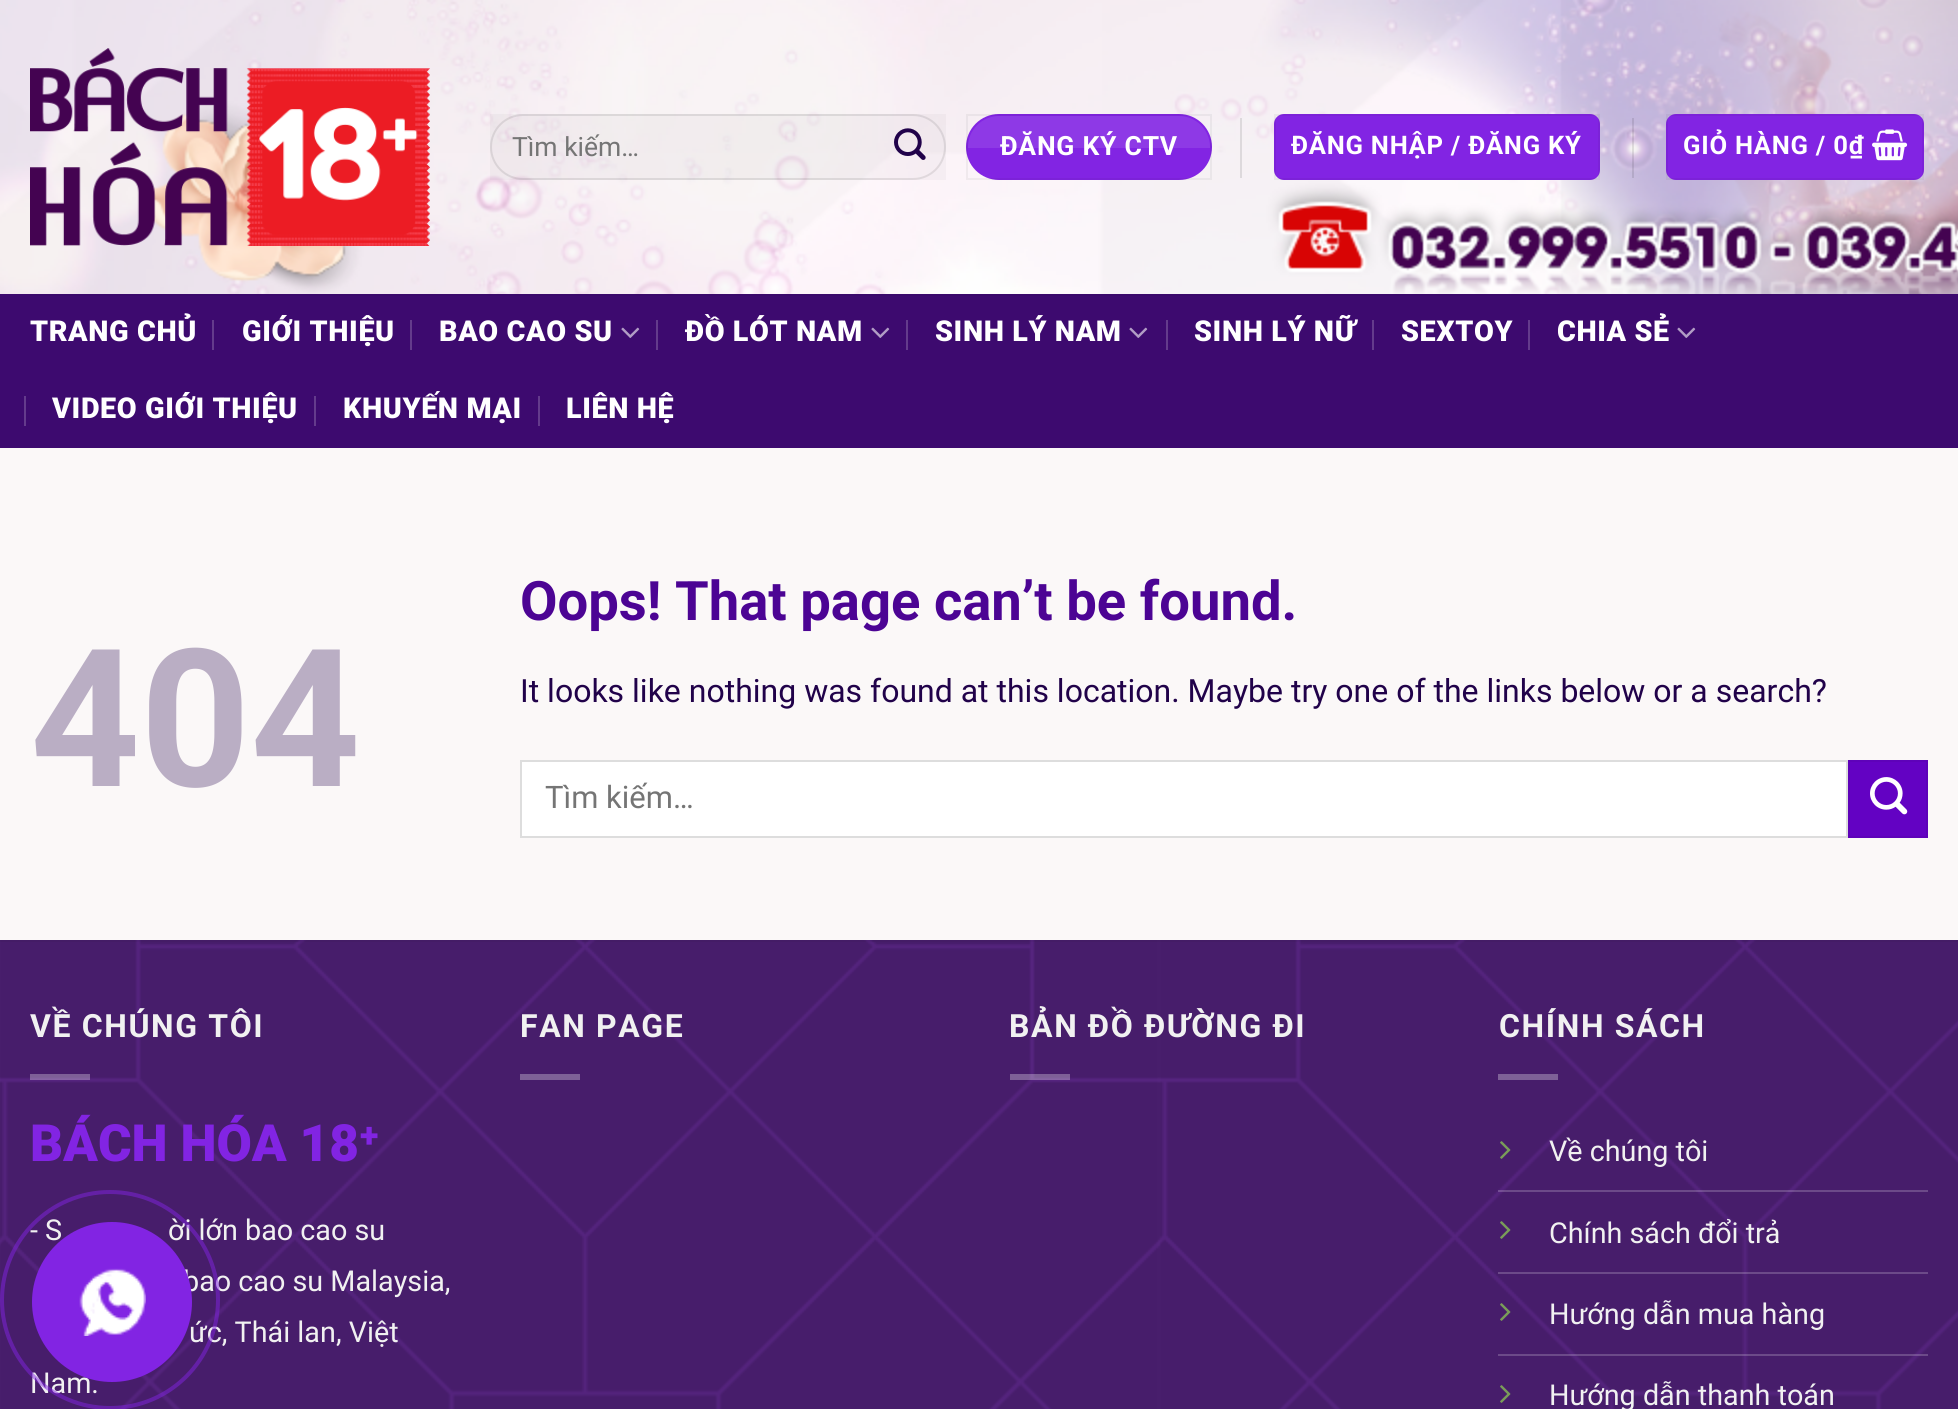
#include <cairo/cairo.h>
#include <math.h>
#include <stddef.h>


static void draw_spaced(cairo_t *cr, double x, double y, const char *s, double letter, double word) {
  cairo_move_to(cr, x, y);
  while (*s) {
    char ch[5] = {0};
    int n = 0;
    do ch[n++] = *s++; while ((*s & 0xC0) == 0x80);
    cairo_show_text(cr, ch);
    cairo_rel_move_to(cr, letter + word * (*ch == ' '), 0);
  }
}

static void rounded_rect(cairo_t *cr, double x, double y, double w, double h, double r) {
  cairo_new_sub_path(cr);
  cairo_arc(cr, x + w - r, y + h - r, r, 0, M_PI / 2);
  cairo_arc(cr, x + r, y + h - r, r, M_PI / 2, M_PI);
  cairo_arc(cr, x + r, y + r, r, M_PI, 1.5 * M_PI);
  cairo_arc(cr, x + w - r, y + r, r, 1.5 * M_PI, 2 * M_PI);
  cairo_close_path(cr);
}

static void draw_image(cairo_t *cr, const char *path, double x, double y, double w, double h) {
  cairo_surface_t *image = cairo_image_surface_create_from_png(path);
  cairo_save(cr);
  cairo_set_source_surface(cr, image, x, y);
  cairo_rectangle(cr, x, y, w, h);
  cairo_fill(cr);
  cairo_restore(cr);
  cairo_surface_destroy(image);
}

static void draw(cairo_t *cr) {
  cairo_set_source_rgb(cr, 251 / 255.0, 248 / 255.0, 248 / 255.0);
  cairo_paint(cr);
  draw_image(cr, "images/1.png", 0, 0, 1958, 294);
  draw_image(cr, "images/2.png", 30, 48, 400, 198);
  cairo_set_source_rgba(cr, 0, 0, 0, 0.03);
  cairo_rectangle(cr, 490, 114, 456, 66);
  cairo_fill(cr);
  rounded_rect(cr, 491, 115, 454, 64, 32);
  cairo_set_source_rgba(cr, 0, 0, 0, 0.09);
  cairo_stroke(cr);
  draw_image(cr, "images/3.png", 894, 128, 32, 32);
  cairo_set_source_rgb(cr, 130 / 255.0, 36 / 255.0, 227 / 255.0);
  rounded_rect(cr, 966, 114, 246, 66, 33);
  cairo_fill(cr);
  cairo_rectangle(cr, 967, 115, 244, 64);
  cairo_set_source_rgba(cr, 0, 0, 0, 0.05);
  cairo_stroke(cr);
  cairo_set_source_rgba(cr, 1, 1, 1, 0.1);
  cairo_new_path(cr);
  cairo_move_to(cr, 999, 116);
  cairo_line_to(cr, 1179, 116);
  cairo_curve_to(cr, 1196, 116, 1210, 130, 1210, 147);
  cairo_line_to(cr, 1210, 148);
  cairo_line_to(cr, 968, 148);
  cairo_line_to(cr, 968, 147);
  cairo_curve_to(cr, 968, 130, 982, 116, 999, 116);
  cairo_close_path(cr);
  cairo_fill(cr);
  cairo_set_source_rgb(cr, 221 / 255.0, 217 / 255.0, 220 / 255.0);
  cairo_rectangle(cr, 1240, 118, 2, 60);
  cairo_fill(cr);
  cairo_set_source_rgb(cr, 130 / 255.0, 36 / 255.0, 227 / 255.0);
  rounded_rect(cr, 1274, 114, 326, 66, 10);
  cairo_fill(cr);
  cairo_rectangle(cr, 1275, 115, 324, 64);
  cairo_set_source_rgba(cr, 0, 0, 0, 0.05);
  cairo_stroke(cr);
  cairo_set_source_rgba(cr, 0, 0, 0, 0.1);
  cairo_rectangle(cr, 1632, 118, 2, 60);
  cairo_fill(cr);
  cairo_set_source_rgb(cr, 130 / 255.0, 36 / 255.0, 227 / 255.0);
  rounded_rect(cr, 1666, 114, 258, 66, 10);
  cairo_fill(cr);
  cairo_rectangle(cr, 1667, 115, 256, 64);
  cairo_set_source_rgba(cr, 0, 0, 0, 0.05);
  cairo_stroke(cr);
  draw_image(cr, "images/4.png", 1872, 129, 36, 32);
  cairo_set_source_rgb(cr, 61 / 255.0, 10 / 255.0, 111 / 255.0);
  cairo_rectangle(cr, 0, 294, 1958, 154);
  cairo_fill(cr);
  cairo_set_source_rgb(cr, 58 / 255.0, 9 / 255.0, 107 / 255.0);
  cairo_rectangle(cr, 30, 294, 1898, 2);
  cairo_fill(cr);
  cairo_set_source_rgb(cr, 100 / 255.0, 59 / 255.0, 140 / 255.0);
  cairo_rectangle(cr, 212, 320, 2, 30);
  cairo_fill(cr);
  cairo_rectangle(cr, 410, 320, 2, 30);
  cairo_fill(cr);
  draw_image(cr, "images/5.png", 621, 327, 19, 11);
  cairo_rectangle(cr, 656, 320, 2, 30);
  cairo_fill(cr);
  draw_image(cr, "images/5.png", 871, 327, 19, 11);
  cairo_rectangle(cr, 906, 320, 2, 30);
  cairo_fill(cr);
  draw_image(cr, "images/5.png", 1129, 327, 19, 11);
  cairo_rectangle(cr, 1166, 320, 2, 30);
  cairo_fill(cr);
  cairo_rectangle(cr, 1372, 320, 2, 30);
  cairo_fill(cr);
  cairo_rectangle(cr, 1528, 320, 2, 30);
  cairo_fill(cr);
  draw_image(cr, "images/5.png", 1677, 327, 19, 11);
  cairo_rectangle(cr, 24, 396, 2, 30);
  cairo_fill(cr);
  cairo_rectangle(cr, 314, 396, 2, 30);
  cairo_fill(cr);
  cairo_rectangle(cr, 538, 396, 2, 30);
  cairo_fill(cr);
  cairo_set_source_rgb(cr, 1, 1, 1);
  cairo_rectangle(cr, 521, 761, 1326, 76);
  cairo_fill_preserve(cr);
  cairo_set_source_rgb(cr, 221 / 255.0, 221 / 255.0, 221 / 255.0);
  cairo_stroke(cr);
  cairo_set_source_rgb(cr, 99 / 255.0, 2 / 255.0, 195 / 255.0);
  cairo_rectangle(cr, 1849, 761, 78, 76);
  cairo_fill_preserve(cr);
  cairo_set_source_rgb(cr, 94 / 255.0, 2 / 255.0, 185 / 255.0);
  cairo_stroke(cr);
  draw_image(cr, "images/6.png", 1870, 777, 38, 38);
  draw_image(cr, "images/7.png", 0, 940, 1958, 469);
  cairo_set_source_rgba(cr, 0, 0, 0, 0.05);
  cairo_rectangle(cr, 0, 940, 1958, 2);
  cairo_fill(cr);
  cairo_set_source_rgba(cr, 1, 1, 1, 0.3);
  cairo_rectangle(cr, 30, 1074, 60, 6);
  cairo_fill(cr);
  cairo_set_source_rgb(cr, 126 / 255.0, 97 / 255.0, 151 / 255.0);
  cairo_rectangle(cr, 520, 1074, 60, 6);
  cairo_fill(cr);
  cairo_set_source_rgba(cr, 1, 1, 1, 0.3);
  cairo_rectangle(cr, 1010, 1074, 60, 6);
  cairo_fill(cr);
  cairo_set_source_rgb(cr, 126 / 255.0, 97 / 255.0, 151 / 255.0);
  cairo_rectangle(cr, 1498, 1074, 60, 6);
  cairo_fill(cr);
  cairo_set_source_rgba(cr, 1, 1, 1, 0.2);
  cairo_rectangle(cr, 1498, 1190, 430, 2);
  cairo_fill(cr);
  draw_image(cr, "images/8.png", 1500, 1141, 11, 18);
  cairo_rectangle(cr, 1498, 1272, 430, 2);
  cairo_fill(cr);
  draw_image(cr, "images/8.png", 1500, 1221, 11, 18);
  cairo_rectangle(cr, 1498, 1354, 430, 2);
  cairo_fill(cr);
  draw_image(cr, "images/8.png", 1500, 1303, 11, 18);
  draw_image(cr, "images/8.png", 1500, 1385, 11, 18);
  cairo_select_font_face(cr, "Roboto", CAIRO_FONT_SLANT_NORMAL, CAIRO_FONT_WEIGHT_NORMAL);
  cairo_set_font_size(cr, 26.5);
  cairo_set_source_rgb(cr, 117 / 255.0, 117 / 255.0, 117 / 255.0);
  cairo_move_to(cr, 512, 156);
  cairo_show_text(cr, "Tìm kiếm…");
  cairo_select_font_face(cr, "Roboto", CAIRO_FONT_SLANT_NORMAL, CAIRO_FONT_WEIGHT_BOLD);
  cairo_set_source_rgb(cr, 1, 1, 1);
  draw_spaced(cr, 1000, 155, "ĐĂNG KÝ CTV", 0.75, 0);
  cairo_set_font_size(cr, 25.6);
  draw_spaced(cr, 1291, 154, "ĐĂNG NHẬP / ĐĂNG KÝ", 0.75, 0);
  draw_spaced(cr, 1683, 154, "GIỎ HÀNG / 0₫", 0.75, 0);
  cairo_select_font_face(cr, "Roboto Black", CAIRO_FONT_SLANT_NORMAL, CAIRO_FONT_WEIGHT_NORMAL);
  cairo_set_font_size(cr, 28.75);
  draw_spaced(cr, 30, 341, "TRANG CHỦ", 0.6, 0);
  draw_spaced(cr, 242, 341, "GIỚI THIỆU", 0.6, 0);
  draw_spaced(cr, 439, 341, "BAO CAO SU", 0.6, 0);
  draw_spaced(cr, 685, 341, "ĐỒ LÓT NAM", 0.6, 0);
  draw_spaced(cr, 935, 341, "SINH LÝ NAM", 0.6, 0);
  draw_spaced(cr, 1194, 341, "SINH LÝ NỮ", 0.6, 0);
  draw_spaced(cr, 1401, 341, "SEXTOY", 0.6, 0);
  draw_spaced(cr, 1557, 341, "CHIA SẺ", 0.6, 0);
  draw_spaced(cr, 52, 418, "VIDEO GIỚI THIỆU", 0.6, 0);
  draw_spaced(cr, 343, 418, "KHUYẾN MẠI", 0.6, 0);
  draw_spaced(cr, 566, 418, "LIÊN HỆ", 0.6, 0);
  cairo_select_font_face(cr, "Roboto", CAIRO_FONT_SLANT_NORMAL, CAIRO_FONT_WEIGHT_BOLD);
  cairo_set_font_size(cr, 192);
  cairo_set_source_rgb(cr, 186 / 255.0, 174 / 255.0, 196 / 255.0);
  cairo_move_to(cr, 30, 786);
  cairo_show_text(cr, "404");
  cairo_set_font_size(cr, 54.4);
  cairo_set_source_rgb(cr, 76 / 255.0, 4 / 255.0, 148 / 255.0);
  cairo_move_to(cr, 520, 620);
  cairo_show_text(cr, "Oops! That page can’t be found.");
  cairo_select_font_face(cr, "Roboto", CAIRO_FONT_SLANT_NORMAL, CAIRO_FONT_WEIGHT_NORMAL);
  cairo_set_font_size(cr, 32);
  cairo_set_source_rgb(cr, 33 / 255.0, 2 / 255.0, 74 / 255.0);
  cairo_move_to(cr, 520, 702);
  cairo_show_text(cr, "It looks like nothing was found at this location. Maybe try one of the links below or a search?");
  cairo_set_font_size(cr, 31);
  cairo_set_source_rgb(cr, 117 / 255.0, 117 / 255.0, 117 / 255.0);
  cairo_move_to(cr, 545, 808);
  cairo_show_text(cr, "Tìm kiếm…");
  cairo_select_font_face(cr, "Roboto", CAIRO_FONT_SLANT_NORMAL, CAIRO_FONT_WEIGHT_BOLD);
  cairo_set_font_size(cr, 32);
  cairo_set_source_rgb(cr, 241 / 255.0, 241 / 255.0, 241 / 255.0);
  draw_spaced(cr, 30, 1037, "VỀ CHÚNG TÔI", 1.6, 0);
  cairo_select_font_face(cr, "Roboto Black", CAIRO_FONT_SLANT_NORMAL, CAIRO_FONT_WEIGHT_NORMAL);
  cairo_set_font_size(cr, 51.25);
  cairo_set_source_rgb(cr, 130 / 255.0, 36 / 255.0, 227 / 255.0);
  cairo_move_to(cr, 30, 1161);
  cairo_show_text(cr, "BÁCH HÓA 18⁺");
  cairo_select_font_face(cr, "Roboto", CAIRO_FONT_SLANT_NORMAL, CAIRO_FONT_WEIGHT_NORMAL);
  cairo_set_font_size(cr, 28.75);
  cairo_set_source_rgb(cr, 241 / 255.0, 241 / 255.0, 241 / 255.0);
  cairo_move_to(cr, 30, 1240);
  cairo_show_text(cr, "- S");
  cairo_move_to(cr, 168, 1240);
  cairo_show_text(cr, "ời lớn bao cao su");
  cairo_move_to(cr, 183, 1291);
  cairo_show_text(cr, "bao cao su Malaysia,");
  cairo_move_to(cr, 189, 1342);
  cairo_show_text(cr, "ức, Thái lan, Việt");
  cairo_move_to(cr, 30, 1393);
  cairo_show_text(cr, "Nam.");
  cairo_select_font_face(cr, "Roboto", CAIRO_FONT_SLANT_NORMAL, CAIRO_FONT_WEIGHT_BOLD);
  cairo_set_font_size(cr, 32);
  draw_spaced(cr, 520, 1037, "FAN PAGE", 1.6, 0);
  draw_spaced(cr, 1009, 1037, "BẢN ĐỒ ĐƯỜNG ĐI", 1.6, 0);
  draw_spaced(cr, 1499, 1037, "CHÍNH SÁCH", 1.6, 0);
  cairo_select_font_face(cr, "Roboto", CAIRO_FONT_SLANT_NORMAL, CAIRO_FONT_WEIGHT_NORMAL);
  cairo_set_font_size(cr, 28.75);
  cairo_move_to(cr, 1549, 1161);
  cairo_show_text(cr, "Về chúng tôi");
  cairo_move_to(cr, 1549, 1243);
  cairo_show_text(cr, "Chính sách đổi trả");
  cairo_move_to(cr, 1549, 1324);
  cairo_show_text(cr, "Hướng dẫn mua hàng");
  cairo_move_to(cr, 1549, 1405);
  cairo_show_text(cr, "Hướng dẫn thanh toán");
  cairo_new_path(cr);
  cairo_arc(cr, 110, 1300, 108, 0, 2 * M_PI);
  cairo_set_source_rgba(cr, 130 / 255.0, 36 / 255.0, 227 / 255.0, 0.5);
  cairo_set_line_width(cr, 4);
  cairo_stroke(cr);
  cairo_set_source_rgb(cr, 130 / 255.0, 36 / 255.0, 227 / 255.0);
  cairo_arc(cr, 112, 1302, 80, 0, 2 * M_PI);
  cairo_fill(cr);
  draw_image(cr, "images/9.png", 79, 1268, 67, 68);
}

int main(void) {
  cairo_surface_t *surface = cairo_image_surface_create(CAIRO_FORMAT_RGB24, 1958, 1409);
  cairo_t *cr = cairo_create(surface);
  cairo_font_options_t *options = cairo_font_options_create();
  cairo_font_options_set_hint_metrics(options, CAIRO_HINT_METRICS_OFF);
  cairo_font_options_set_hint_style(options, CAIRO_HINT_STYLE_NONE);
  cairo_set_font_options(cr, options);
  cairo_set_miter_limit(cr, 4);
  draw(cr);
  cairo_surface_write_to_png(surface, "out.png");
  cairo_font_options_destroy(options);
  cairo_destroy(cr);
  cairo_surface_destroy(surface);
  return 0;
}
